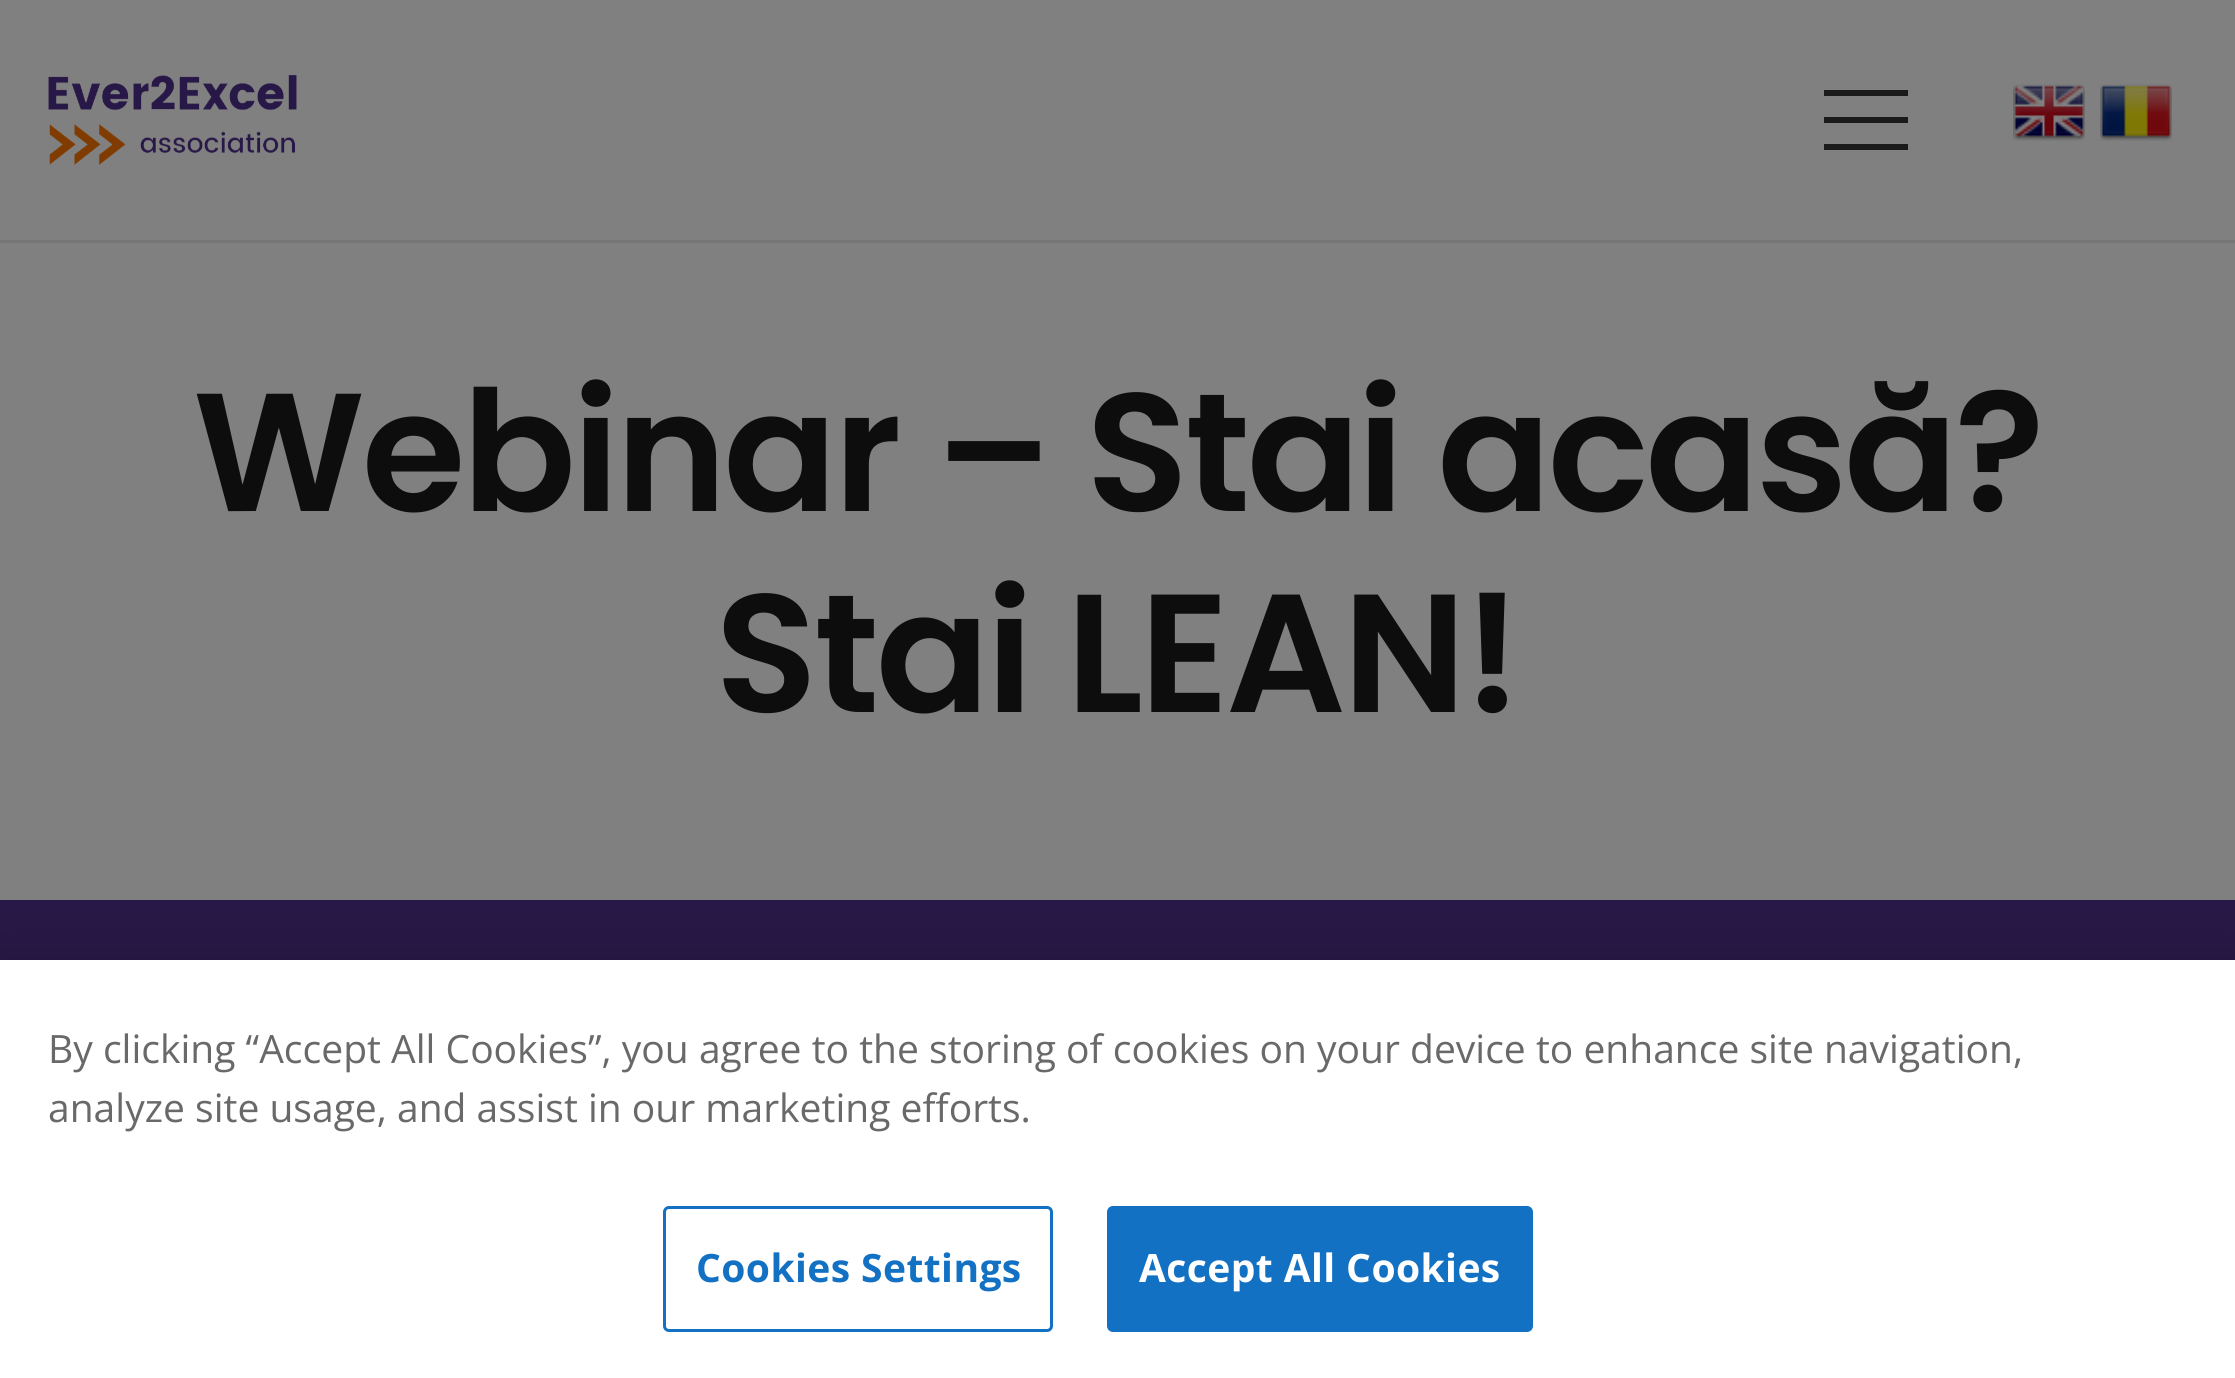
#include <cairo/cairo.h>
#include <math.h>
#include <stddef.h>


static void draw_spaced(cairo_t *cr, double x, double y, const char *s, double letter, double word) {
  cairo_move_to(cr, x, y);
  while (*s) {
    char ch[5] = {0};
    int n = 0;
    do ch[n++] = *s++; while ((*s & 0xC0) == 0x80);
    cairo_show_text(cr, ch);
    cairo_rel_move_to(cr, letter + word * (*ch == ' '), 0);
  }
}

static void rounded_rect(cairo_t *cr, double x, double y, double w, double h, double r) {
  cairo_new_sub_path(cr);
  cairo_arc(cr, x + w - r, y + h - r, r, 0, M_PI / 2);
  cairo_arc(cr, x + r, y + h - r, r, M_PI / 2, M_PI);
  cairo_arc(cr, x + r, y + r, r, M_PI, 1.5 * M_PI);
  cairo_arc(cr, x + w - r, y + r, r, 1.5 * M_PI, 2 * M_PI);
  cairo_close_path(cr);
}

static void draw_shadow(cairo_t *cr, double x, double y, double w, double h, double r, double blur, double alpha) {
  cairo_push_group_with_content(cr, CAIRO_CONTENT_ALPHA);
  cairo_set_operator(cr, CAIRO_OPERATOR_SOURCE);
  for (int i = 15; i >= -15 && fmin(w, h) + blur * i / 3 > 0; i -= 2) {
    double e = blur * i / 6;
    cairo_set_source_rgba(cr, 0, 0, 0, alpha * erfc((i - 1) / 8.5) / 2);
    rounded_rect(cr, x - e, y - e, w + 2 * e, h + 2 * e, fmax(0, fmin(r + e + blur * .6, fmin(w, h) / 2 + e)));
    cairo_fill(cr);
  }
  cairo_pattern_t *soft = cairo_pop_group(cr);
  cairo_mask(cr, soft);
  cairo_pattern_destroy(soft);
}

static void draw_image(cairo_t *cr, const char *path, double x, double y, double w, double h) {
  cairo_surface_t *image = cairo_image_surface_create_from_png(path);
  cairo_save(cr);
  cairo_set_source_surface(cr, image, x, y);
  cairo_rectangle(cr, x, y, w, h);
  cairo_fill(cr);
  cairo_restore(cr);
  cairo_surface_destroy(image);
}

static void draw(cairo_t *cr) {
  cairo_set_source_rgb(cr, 128 / 255.0, 128 / 255.0, 128 / 255.0);
  cairo_paint(cr);
  cairo_set_source_rgb(cr, 118 / 255.0, 118 / 255.0, 118 / 255.0);
  cairo_rectangle(cr, 0, 240, 2235, 3);
  cairo_fill(cr);
  draw_image(cr, "images/1.png", 48, 75, 249, 90);
  cairo_set_source_rgb(cr, 26 / 255.0, 26 / 255.0, 26 / 255.0);
  cairo_rectangle(cr, 1824, 117, 84, 6);
  cairo_fill(cr);
  cairo_rectangle(cr, 1824, 90, 84, 6);
  cairo_fill(cr);
  cairo_rectangle(cr, 1824, 144, 84, 6);
  cairo_fill(cr);
  draw_image(cr, "images/2.png", 2013, 84, 72, 57);
  draw_image(cr, "images/3.png", 2100, 84, 72, 57);
  cairo_set_source_rgb(cr, 40 / 255.0, 24 / 255.0, 71 / 255.0);
  cairo_rectangle(cr, 0, 900, 2235, 60);
  cairo_fill(cr);
  cairo_set_source_rgb(cr, 0, 0, 0);
  draw_shadow(cr, 0, 960, 2235, 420, 0, 27, 0.2);
  cairo_set_source_rgb(cr, 1, 1, 1);
  cairo_rectangle(cr, 0, 960, 2235, 418);
  cairo_fill(cr);
  rounded_rect(cr, 664.5, 1207.5, 387, 123, 4.5);
  cairo_set_source_rgb(cr, 19 / 255.0, 113 / 255.0, 195 / 255.0);
  cairo_set_line_width(cr, 3);
  cairo_stroke(cr);
  rounded_rect(cr, 1108.5, 1207.5, 423, 123, 4.5);
  cairo_fill_preserve(cr);
  cairo_stroke(cr);
  cairo_select_font_face(cr, "Poppins SemiBold", CAIRO_FONT_SLANT_NORMAL, CAIRO_FONT_WEIGHT_NORMAL);
  cairo_set_font_size(cr, 168);
  cairo_set_source_rgb(cr, 13 / 255.0, 13 / 255.0, 13 / 255.0);
  draw_spaced(cr, 193, 511, "Webinar – Stai acasă?", -3.4, 0);
  draw_spaced(cr, 715, 712, "Stai LEAN!", -3.4, 0);
  cairo_select_font_face(cr, "Open Sans", CAIRO_FONT_SLANT_NORMAL, CAIRO_FONT_WEIGHT_NORMAL);
  cairo_set_font_size(cr, 39.02);
  cairo_set_source_rgb(cr, 105 / 255.0, 105 / 255.0, 105 / 255.0);
  cairo_move_to(cr, 48, 1063);
  cairo_show_text(cr, "By clicking “Accept All Cookies”, you agree to the storing of cookies on your device to enhance site navigation,");
  cairo_move_to(cr, 48, 1122);
  cairo_show_text(cr, "analyze site usage, and assist in our marketing efforts.");
  cairo_select_font_face(cr, "Open Sans", CAIRO_FONT_SLANT_NORMAL, CAIRO_FONT_WEIGHT_BOLD);
  cairo_set_source_rgb(cr, 19 / 255.0, 113 / 255.0, 195 / 255.0);
  draw_spaced(cr, 696, 1282, "Cookies Settings", 0.4, 0);
  cairo_set_source_rgb(cr, 1, 1, 1);
  draw_spaced(cr, 1139, 1282, "Accept All Cookies", 0.4, 0);
}

int main(void) {
  cairo_surface_t *surface = cairo_image_surface_create(CAIRO_FORMAT_RGB24, 2235, 1378);
  cairo_t *cr = cairo_create(surface);
  cairo_font_options_t *options = cairo_font_options_create();
  cairo_font_options_set_hint_metrics(options, CAIRO_HINT_METRICS_OFF);
  cairo_font_options_set_hint_style(options, CAIRO_HINT_STYLE_NONE);
  cairo_set_font_options(cr, options);
  cairo_set_miter_limit(cr, 4);
  draw(cr);
  cairo_surface_write_to_png(surface, "out.png");
  cairo_font_options_destroy(options);
  cairo_destroy(cr);
  cairo_surface_destroy(surface);
  return 0;
}
